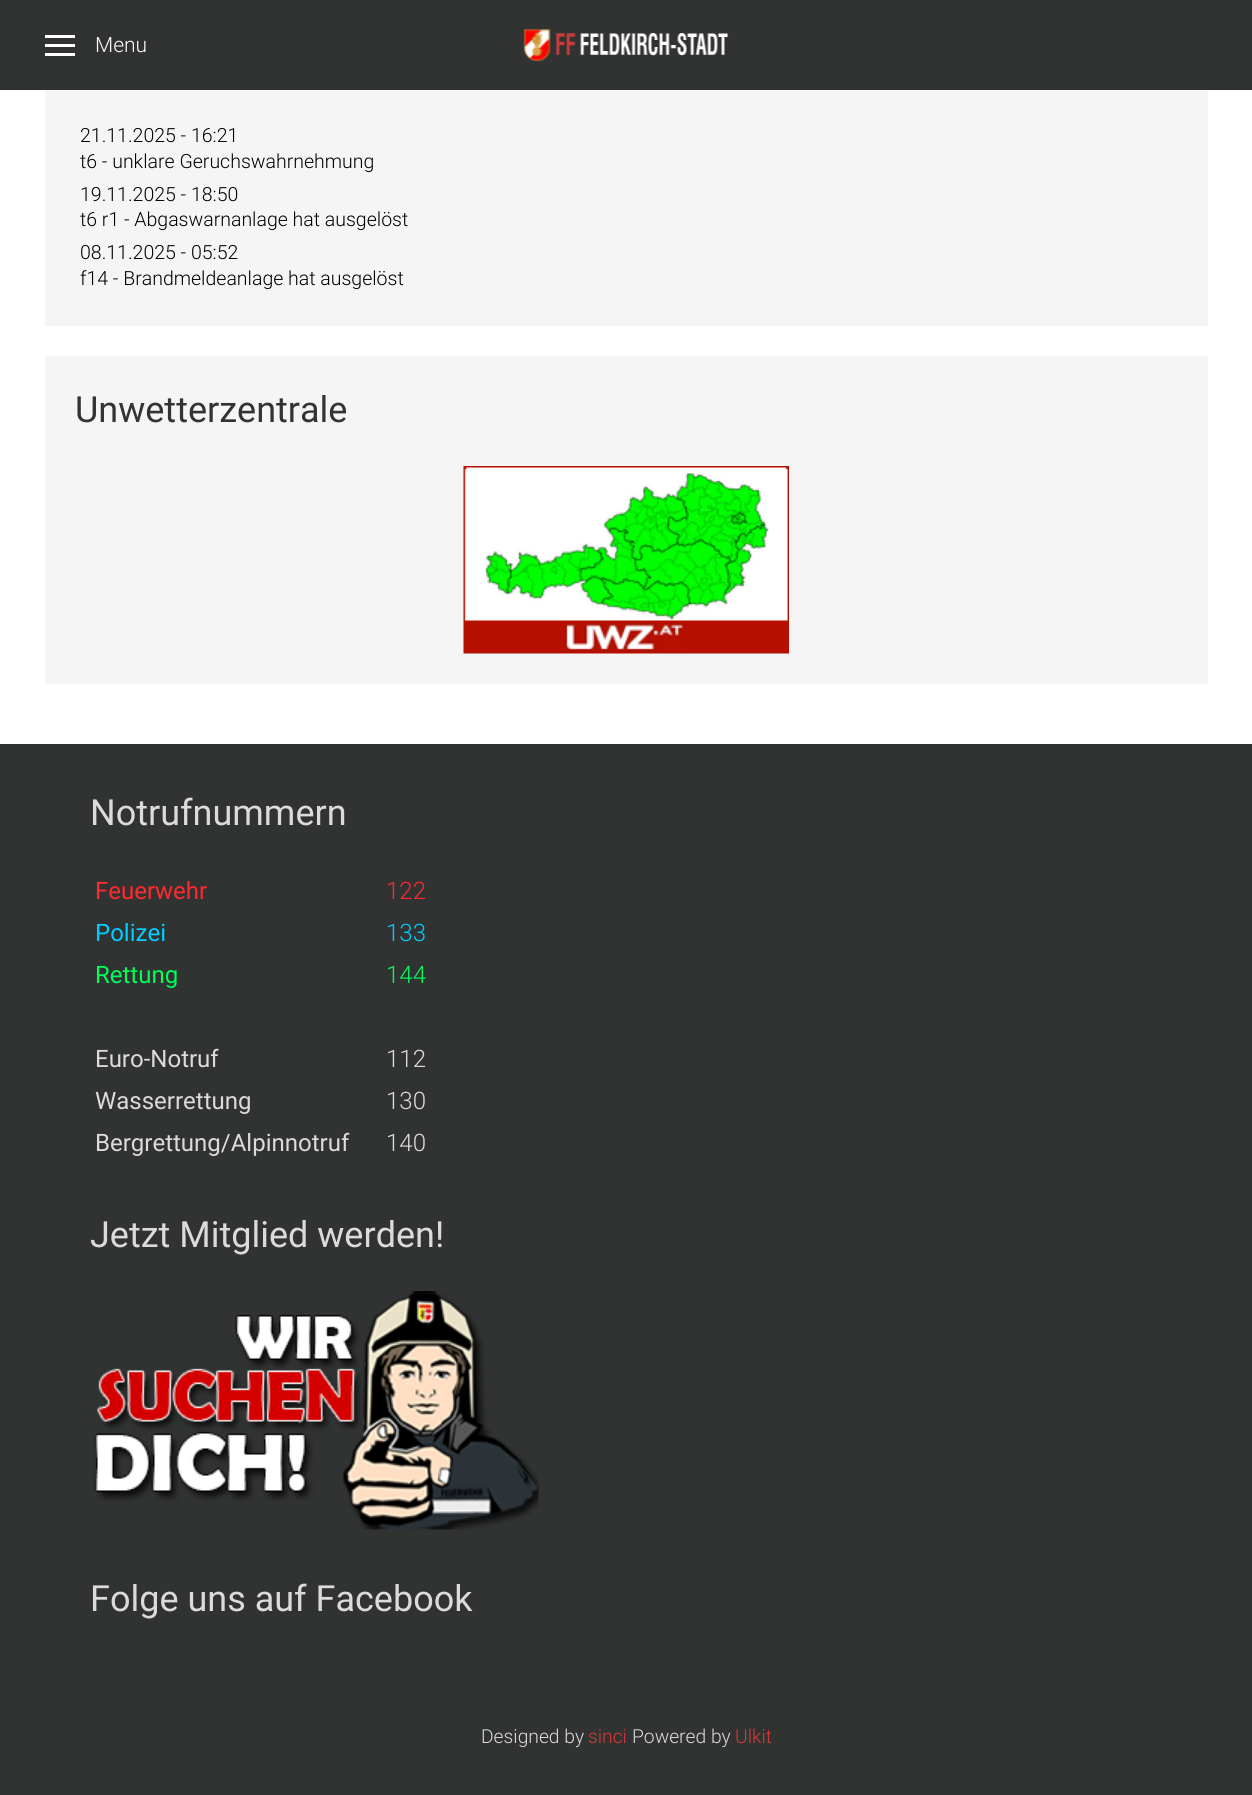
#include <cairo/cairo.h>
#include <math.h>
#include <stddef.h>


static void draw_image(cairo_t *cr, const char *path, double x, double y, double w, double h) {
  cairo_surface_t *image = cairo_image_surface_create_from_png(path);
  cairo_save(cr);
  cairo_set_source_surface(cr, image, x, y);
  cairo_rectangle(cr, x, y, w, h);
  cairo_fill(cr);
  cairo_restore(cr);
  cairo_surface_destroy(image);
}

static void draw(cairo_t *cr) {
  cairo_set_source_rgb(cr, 1, 1, 1);
  cairo_paint(cr);
  cairo_set_source_rgb(cr, 49 / 255.0, 50 / 255.0, 50 / 255.0);
  cairo_rectangle(cr, 0, 0, 1252, 90);
  cairo_fill(cr);
  cairo_set_source_rgb(cr, 1, 1, 1);
  cairo_rectangle(cr, 45, 35, 30, 3);
  cairo_fill(cr);
  cairo_rectangle(cr, 45, 44, 30, 3);
  cairo_fill(cr);
  cairo_rectangle(cr, 45, 53, 30, 3);
  cairo_fill(cr);
  draw_image(cr, "images/1.png", 523, 29, 206, 32);
  cairo_set_source_rgb(cr, 245 / 255.0, 245 / 255.0, 245 / 255.0);
  cairo_rectangle(cr, 45, 90, 1163, 236);
  cairo_fill(cr);
  cairo_rectangle(cr, 45, 356, 1163, 328);
  cairo_fill(cr);
  draw_image(cr, "images/2.png", 463, 466, 326, 188);
  cairo_set_source_rgb(cr, 49 / 255.0, 50 / 255.0, 50 / 255.0);
  cairo_rectangle(cr, 0, 744, 1252, 1051);
  cairo_fill(cr);
  draw_image(cr, "images/3.png", 94, 1291, 445, 239);
  cairo_select_font_face(cr, "Roboto Light", CAIRO_FONT_SLANT_NORMAL, CAIRO_FONT_WEIGHT_NORMAL);
  cairo_set_font_size(cr, 21);
  cairo_set_source_rgb(cr, 1, 1, 1);
  cairo_move_to(cr, 95, 52);
  cairo_show_text(cr, "Menu");
  cairo_set_font_size(cr, 19.5);
  cairo_set_source_rgb(cr, 0, 0, 0);
  cairo_move_to(cr, 80, 142);
  cairo_show_text(cr, "21.11.2025 - 16:21");
  cairo_move_to(cr, 80, 168);
  cairo_show_text(cr, "t6 - unklare Geruchswahrnehmung");
  cairo_move_to(cr, 80, 201);
  cairo_show_text(cr, "19.11.2025 - 18:50");
  cairo_move_to(cr, 80, 226);
  cairo_show_text(cr, "t6 r1 - Abgaswarnanlage hat ausgelöst");
  cairo_move_to(cr, 80, 259);
  cairo_show_text(cr, "08.11.2025 - 05:52");
  cairo_move_to(cr, 80, 285);
  cairo_show_text(cr, "f14 - Brandmeldeanlage hat ausgelöst");
  cairo_select_font_face(cr, "Roboto", CAIRO_FONT_SLANT_NORMAL, CAIRO_FONT_WEIGHT_NORMAL);
  cairo_set_font_size(cr, 36);
  cairo_set_source_rgb(cr, 51 / 255.0, 51 / 255.0, 51 / 255.0);
  cairo_move_to(cr, 75, 422);
  cairo_show_text(cr, "Unwetterzentrale");
  cairo_set_source_rgb(cr, 219 / 255.0, 219 / 255.0, 219 / 255.0);
  cairo_move_to(cr, 90, 825);
  cairo_show_text(cr, "Notrufnummern");
  cairo_set_font_size(cr, 24);
  cairo_set_source_rgb(cr, 254 / 255.0, 42 / 255.0, 45 / 255.0);
  cairo_move_to(cr, 95, 899);
  cairo_show_text(cr, "Feuerwehr");
  cairo_select_font_face(cr, "Roboto Light", CAIRO_FONT_SLANT_NORMAL, CAIRO_FONT_WEIGHT_NORMAL);
  cairo_move_to(cr, 386, 899);
  cairo_show_text(cr, "122");
  cairo_select_font_face(cr, "Roboto", CAIRO_FONT_SLANT_NORMAL, CAIRO_FONT_WEIGHT_NORMAL);
  cairo_set_source_rgb(cr, 0, 206 / 255.0, 254 / 255.0);
  cairo_move_to(cr, 95, 941);
  cairo_show_text(cr, "Polizei");
  cairo_select_font_face(cr, "Roboto Light", CAIRO_FONT_SLANT_NORMAL, CAIRO_FONT_WEIGHT_NORMAL);
  cairo_move_to(cr, 386, 941);
  cairo_show_text(cr, "133");
  cairo_select_font_face(cr, "Roboto", CAIRO_FONT_SLANT_NORMAL, CAIRO_FONT_WEIGHT_NORMAL);
  cairo_set_source_rgb(cr, 0, 254 / 255.0, 90 / 255.0);
  cairo_move_to(cr, 95, 983);
  cairo_show_text(cr, "Rettung");
  cairo_select_font_face(cr, "Roboto Light", CAIRO_FONT_SLANT_NORMAL, CAIRO_FONT_WEIGHT_NORMAL);
  cairo_move_to(cr, 386, 983);
  cairo_show_text(cr, "144");
  cairo_select_font_face(cr, "Roboto", CAIRO_FONT_SLANT_NORMAL, CAIRO_FONT_WEIGHT_NORMAL);
  cairo_set_source_rgb(cr, 219 / 255.0, 219 / 255.0, 219 / 255.0);
  cairo_move_to(cr, 95, 1067);
  cairo_show_text(cr, "Euro-Notruf");
  cairo_select_font_face(cr, "Roboto Light", CAIRO_FONT_SLANT_NORMAL, CAIRO_FONT_WEIGHT_NORMAL);
  cairo_move_to(cr, 386, 1067);
  cairo_show_text(cr, "112");
  cairo_select_font_face(cr, "Roboto", CAIRO_FONT_SLANT_NORMAL, CAIRO_FONT_WEIGHT_NORMAL);
  cairo_move_to(cr, 95, 1109);
  cairo_show_text(cr, "Wasserrettung");
  cairo_select_font_face(cr, "Roboto Light", CAIRO_FONT_SLANT_NORMAL, CAIRO_FONT_WEIGHT_NORMAL);
  cairo_move_to(cr, 386, 1109);
  cairo_show_text(cr, "130");
  cairo_select_font_face(cr, "Roboto", CAIRO_FONT_SLANT_NORMAL, CAIRO_FONT_WEIGHT_NORMAL);
  cairo_move_to(cr, 95, 1151);
  cairo_show_text(cr, "Bergrettung/Alpinnotruf");
  cairo_select_font_face(cr, "Roboto Light", CAIRO_FONT_SLANT_NORMAL, CAIRO_FONT_WEIGHT_NORMAL);
  cairo_move_to(cr, 386, 1151);
  cairo_show_text(cr, "140");
  cairo_select_font_face(cr, "Roboto", CAIRO_FONT_SLANT_NORMAL, CAIRO_FONT_WEIGHT_NORMAL);
  cairo_set_font_size(cr, 36);
  cairo_move_to(cr, 90, 1247);
  cairo_show_text(cr, "Jetzt Mitglied werden!");
  cairo_move_to(cr, 90, 1611);
  cairo_show_text(cr, "Folge uns auf Facebook");
  cairo_select_font_face(cr, "Roboto Light", CAIRO_FONT_SLANT_NORMAL, CAIRO_FONT_WEIGHT_NORMAL);
  cairo_set_font_size(cr, 19.25);
  cairo_move_to(cr, 481, 1743);
  cairo_show_text(cr, "Designed by");
  cairo_set_source_rgb(cr, 214 / 255.0, 59 / 255.0, 55 / 255.0);
  cairo_move_to(cr, 588, 1743);
  cairo_show_text(cr, "sinci");
  cairo_set_source_rgb(cr, 219 / 255.0, 219 / 255.0, 219 / 255.0);
  cairo_move_to(cr, 632, 1743);
  cairo_show_text(cr, "Powered by");
  cairo_set_source_rgb(cr, 214 / 255.0, 59 / 255.0, 55 / 255.0);
  cairo_move_to(cr, 735, 1743);
  cairo_show_text(cr, "Ulkit");
}

int main(void) {
  cairo_surface_t *surface = cairo_image_surface_create(CAIRO_FORMAT_RGB24, 1252, 1795);
  cairo_t *cr = cairo_create(surface);
  cairo_font_options_t *options = cairo_font_options_create();
  cairo_font_options_set_hint_metrics(options, CAIRO_HINT_METRICS_OFF);
  cairo_font_options_set_hint_style(options, CAIRO_HINT_STYLE_NONE);
  cairo_set_font_options(cr, options);
  cairo_set_miter_limit(cr, 4);
  draw(cr);
  cairo_surface_write_to_png(surface, "out.png");
  cairo_font_options_destroy(options);
  cairo_destroy(cr);
  cairo_surface_destroy(surface);
  return 0;
}
